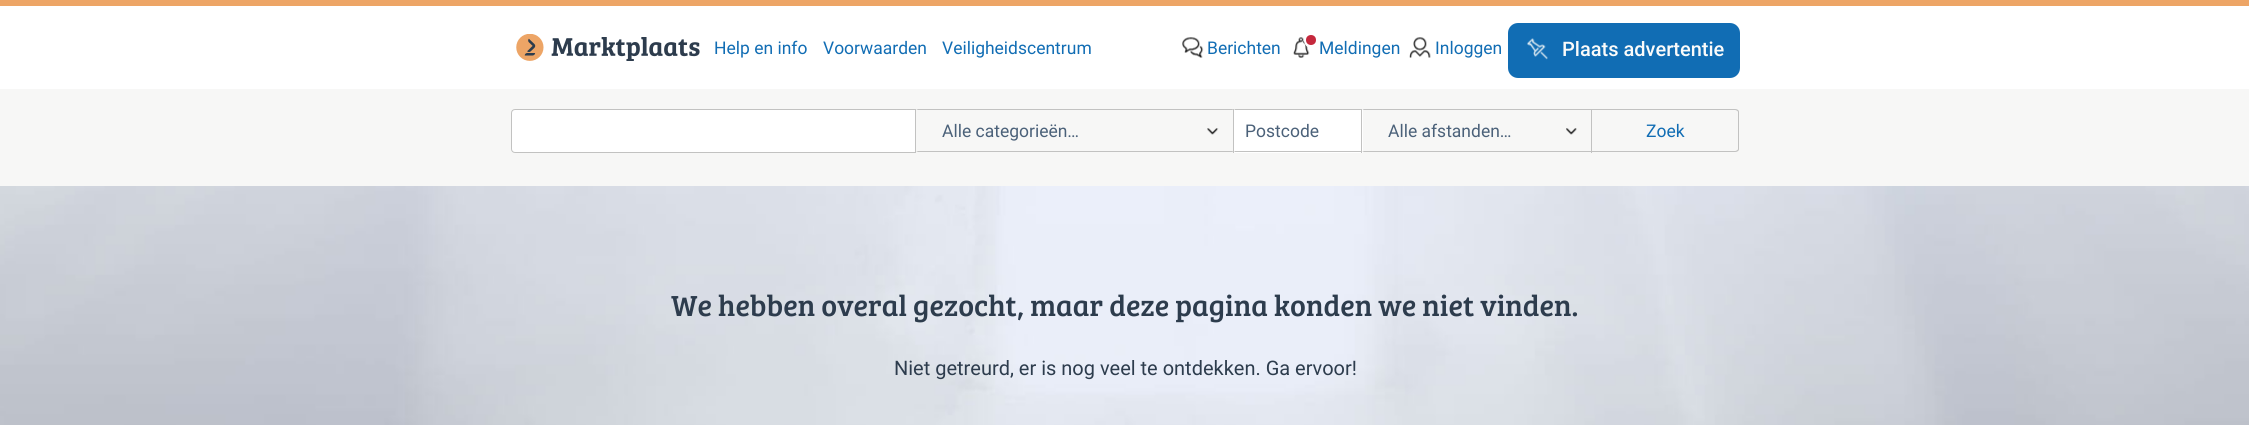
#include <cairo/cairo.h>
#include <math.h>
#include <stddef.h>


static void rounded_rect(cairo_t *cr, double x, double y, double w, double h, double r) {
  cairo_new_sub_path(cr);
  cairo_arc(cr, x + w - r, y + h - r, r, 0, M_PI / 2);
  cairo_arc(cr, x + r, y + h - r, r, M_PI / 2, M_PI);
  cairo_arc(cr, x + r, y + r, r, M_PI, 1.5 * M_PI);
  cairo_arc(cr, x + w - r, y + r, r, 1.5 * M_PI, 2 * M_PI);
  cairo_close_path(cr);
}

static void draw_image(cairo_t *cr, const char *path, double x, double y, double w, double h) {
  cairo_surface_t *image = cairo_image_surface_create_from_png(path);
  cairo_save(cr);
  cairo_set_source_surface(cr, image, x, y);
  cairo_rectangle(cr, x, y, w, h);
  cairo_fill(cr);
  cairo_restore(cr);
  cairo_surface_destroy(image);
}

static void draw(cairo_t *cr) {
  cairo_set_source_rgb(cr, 1, 1, 1);
  cairo_paint(cr);
  cairo_set_source_rgb(cr, 237 / 255.0, 165 / 255.0, 102 / 255.0);
  cairo_rectangle(cr, 0, 0, 2249, 6);
  cairo_fill(cr);
  draw_image(cr, "images/1.png", 516, 34, 184, 27);
  draw_image(cr, "images/2.png", 1182, 37, 22, 21);
  draw_image(cr, "images/3.png", 1293, 37, 17, 21);
  cairo_arc(cr, 1311.5, 40.5, 6, 0, 2 * M_PI);
  cairo_set_source_rgb(cr, 1, 1, 1);
  cairo_set_line_width(cr, 3);
  cairo_stroke(cr);
  cairo_set_source_rgb(cr, 197 / 255.0, 40 / 255.0, 61 / 255.0);
  cairo_arc(cr, 1311, 40, 5, 0, 2 * M_PI);
  cairo_fill(cr);
  draw_image(cr, "images/4.png", 1409, 37, 22, 21);
  cairo_set_source_rgb(cr, 17 / 255.0, 109 / 255.0, 180 / 255.0);
  rounded_rect(cr, 1508, 23, 232, 55, 10);
  cairo_fill(cr);
  draw_image(cr, "images/5.png", 1527, 38, 21, 22);
  cairo_set_source_rgb(cr, 247 / 255.0, 247 / 255.0, 246 / 255.0);
  cairo_rectangle(cr, 0, 89, 2249, 97);
  cairo_fill(cr);
  cairo_set_source_rgb(cr, 1, 1, 1);
  cairo_new_path(cr);
  cairo_move_to(cr, 515, 109.5);
  cairo_line_to(cr, 915.5, 109.5);
  cairo_line_to(cr, 915.5, 152.5);
  cairo_line_to(cr, 515, 152.5);
  cairo_curve_to(cr, 513, 152.5, 511.5, 151, 511.5, 149);
  cairo_line_to(cr, 511.5, 113);
  cairo_curve_to(cr, 511.5, 111, 513, 109.5, 515, 109.5);
  cairo_close_path(cr);
  cairo_fill_preserve(cr);
  cairo_set_source_rgb(cr, 194 / 255.0, 194 / 255.0, 193 / 255.0);
  cairo_set_line_width(cr, 1);
  cairo_stroke(cr);
  cairo_new_path(cr);
  cairo_move_to(cr, 916, 109);
  cairo_line_to(cr, 1234, 109);
  cairo_line_to(cr, 1232, 110);
  cairo_line_to(cr, 918, 110);
  cairo_close_path(cr);
  cairo_fill(cr);
  cairo_rectangle(cr, 1233, 109, 1, 44);
  cairo_fill(cr);
  cairo_new_path(cr);
  cairo_move_to(cr, 1234, 152);
  cairo_line_to(cr, 916, 152);
  cairo_line_to(cr, 918, 151);
  cairo_line_to(cr, 1232, 151);
  cairo_close_path(cr);
  cairo_fill(cr);
  draw_image(cr, "images/6.png", 1207, 128, 12, 7);
  cairo_set_source_rgb(cr, 1, 1, 1);
  cairo_rectangle(cr, 1234, 109, 129, 44);
  cairo_fill(cr);
  cairo_set_source_rgb(cr, 194 / 255.0, 194 / 255.0, 193 / 255.0);
  cairo_new_path(cr);
  cairo_move_to(cr, 1234, 109);
  cairo_line_to(cr, 1362, 109);
  cairo_line_to(cr, 1361, 110);
  cairo_line_to(cr, 1235, 110);
  cairo_close_path(cr);
  cairo_fill(cr);
  cairo_rectangle(cr, 1361, 109, 1, 44);
  cairo_fill(cr);
  cairo_new_path(cr);
  cairo_move_to(cr, 1362, 152);
  cairo_line_to(cr, 1234, 152);
  cairo_line_to(cr, 1235, 151);
  cairo_line_to(cr, 1361, 151);
  cairo_close_path(cr);
  cairo_fill(cr);
  cairo_new_path(cr);
  cairo_move_to(cr, 1362, 109);
  cairo_line_to(cr, 1592, 109);
  cairo_line_to(cr, 1591, 110);
  cairo_line_to(cr, 1364, 110);
  cairo_close_path(cr);
  cairo_fill(cr);
  cairo_rectangle(cr, 1591, 109, 1, 44);
  cairo_fill(cr);
  cairo_new_path(cr);
  cairo_move_to(cr, 1592, 152);
  cairo_line_to(cr, 1362, 152);
  cairo_line_to(cr, 1364, 151);
  cairo_line_to(cr, 1591, 151);
  cairo_close_path(cr);
  cairo_fill(cr);
  draw_image(cr, "images/7.png", 1566, 128, 11, 7);
  cairo_set_fill_rule(cr, CAIRO_FILL_RULE_EVEN_ODD);
  cairo_new_path(cr);
  cairo_move_to(cr, 1592, 109);
  cairo_line_to(cr, 1735, 109);
  cairo_curve_to(cr, 1737, 109, 1739, 110, 1739, 112);
  cairo_line_to(cr, 1739, 149);
  cairo_curve_to(cr, 1739, 151, 1737, 152, 1735, 152);
  cairo_line_to(cr, 1592, 152);
  cairo_close_path(cr);
  cairo_move_to(cr, 1592, 110);
  cairo_line_to(cr, 1735, 110);
  cairo_curve_to(cr, 1736, 110, 1738, 111, 1738, 112);
  cairo_line_to(cr, 1738, 149);
  cairo_curve_to(cr, 1738, 150, 1736, 151, 1735, 151);
  cairo_line_to(cr, 1592, 151);
  cairo_close_path(cr);
  cairo_fill(cr);
  draw_image(cr, "images/8.png", 0, 186, 2249, 239);
  cairo_select_font_face(cr, "Roboto", CAIRO_FONT_SLANT_NORMAL, CAIRO_FONT_WEIGHT_NORMAL);
  cairo_set_font_size(cr, 17.5);
  cairo_set_source_rgb(cr, 17 / 255.0, 109 / 255.0, 180 / 255.0);
  cairo_move_to(cr, 714, 54);
  cairo_show_text(cr, "Help en info");
  cairo_move_to(cr, 823, 54);
  cairo_show_text(cr, "Voorwaarden");
  cairo_move_to(cr, 942, 54);
  cairo_show_text(cr, "Veiligheidscentrum");
  cairo_move_to(cr, 1207, 54);
  cairo_show_text(cr, "Berichten");
  cairo_move_to(cr, 1319, 54);
  cairo_show_text(cr, "Meldingen");
  cairo_move_to(cr, 1435, 54);
  cairo_show_text(cr, "Inloggen");
  cairo_select_font_face(cr, "Roboto Medium", CAIRO_FONT_SLANT_NORMAL, CAIRO_FONT_WEIGHT_NORMAL);
  cairo_set_font_size(cr, 20);
  cairo_set_source_rgb(cr, 251 / 255.0, 251 / 255.0, 250 / 255.0);
  cairo_move_to(cr, 1562, 56);
  cairo_show_text(cr, "Plaats advertentie");
  cairo_select_font_face(cr, "Roboto", CAIRO_FONT_SLANT_NORMAL, CAIRO_FONT_WEIGHT_NORMAL);
  cairo_set_font_size(cr, 17.5);
  cairo_set_source_rgb(cr, 75 / 255.0, 97 / 255.0, 121 / 255.0);
  cairo_move_to(cr, 942, 137);
  cairo_show_text(cr, "Alle categorieën…");
  cairo_move_to(cr, 1245, 137);
  cairo_show_text(cr, "Postcode");
  cairo_move_to(cr, 1388, 137);
  cairo_show_text(cr, "Alle afstanden…");
  cairo_set_source_rgb(cr, 17 / 255.0, 109 / 255.0, 180 / 255.0);
  cairo_move_to(cr, 1646, 137);
  cairo_show_text(cr, "Zoek");
  cairo_select_font_face(cr, "Bree Serif", CAIRO_FONT_SLANT_NORMAL, CAIRO_FONT_WEIGHT_NORMAL);
  cairo_set_font_size(cr, 30);
  cairo_set_source_rgb(cr, 45 / 255.0, 60 / 255.0, 77 / 255.0);
  cairo_move_to(cr, 671, 316);
  cairo_show_text(cr, "We hebben overal gezocht, maar deze pagina konden we niet vinden.");
  cairo_select_font_face(cr, "Roboto", CAIRO_FONT_SLANT_NORMAL, CAIRO_FONT_WEIGHT_NORMAL);
  cairo_set_font_size(cr, 20);
  cairo_move_to(cr, 894, 375);
  cairo_show_text(cr, "Niet getreurd, er is nog veel te ontdekken. Ga ervoor!");
}

int main(void) {
  cairo_surface_t *surface = cairo_image_surface_create(CAIRO_FORMAT_RGB24, 2249, 425);
  cairo_t *cr = cairo_create(surface);
  cairo_font_options_t *options = cairo_font_options_create();
  cairo_font_options_set_hint_metrics(options, CAIRO_HINT_METRICS_OFF);
  cairo_font_options_set_hint_style(options, CAIRO_HINT_STYLE_NONE);
  cairo_set_font_options(cr, options);
  cairo_set_miter_limit(cr, 4);
  draw(cr);
  cairo_surface_write_to_png(surface, "out.png");
  cairo_font_options_destroy(options);
  cairo_destroy(cr);
  cairo_surface_destroy(surface);
  return 0;
}
